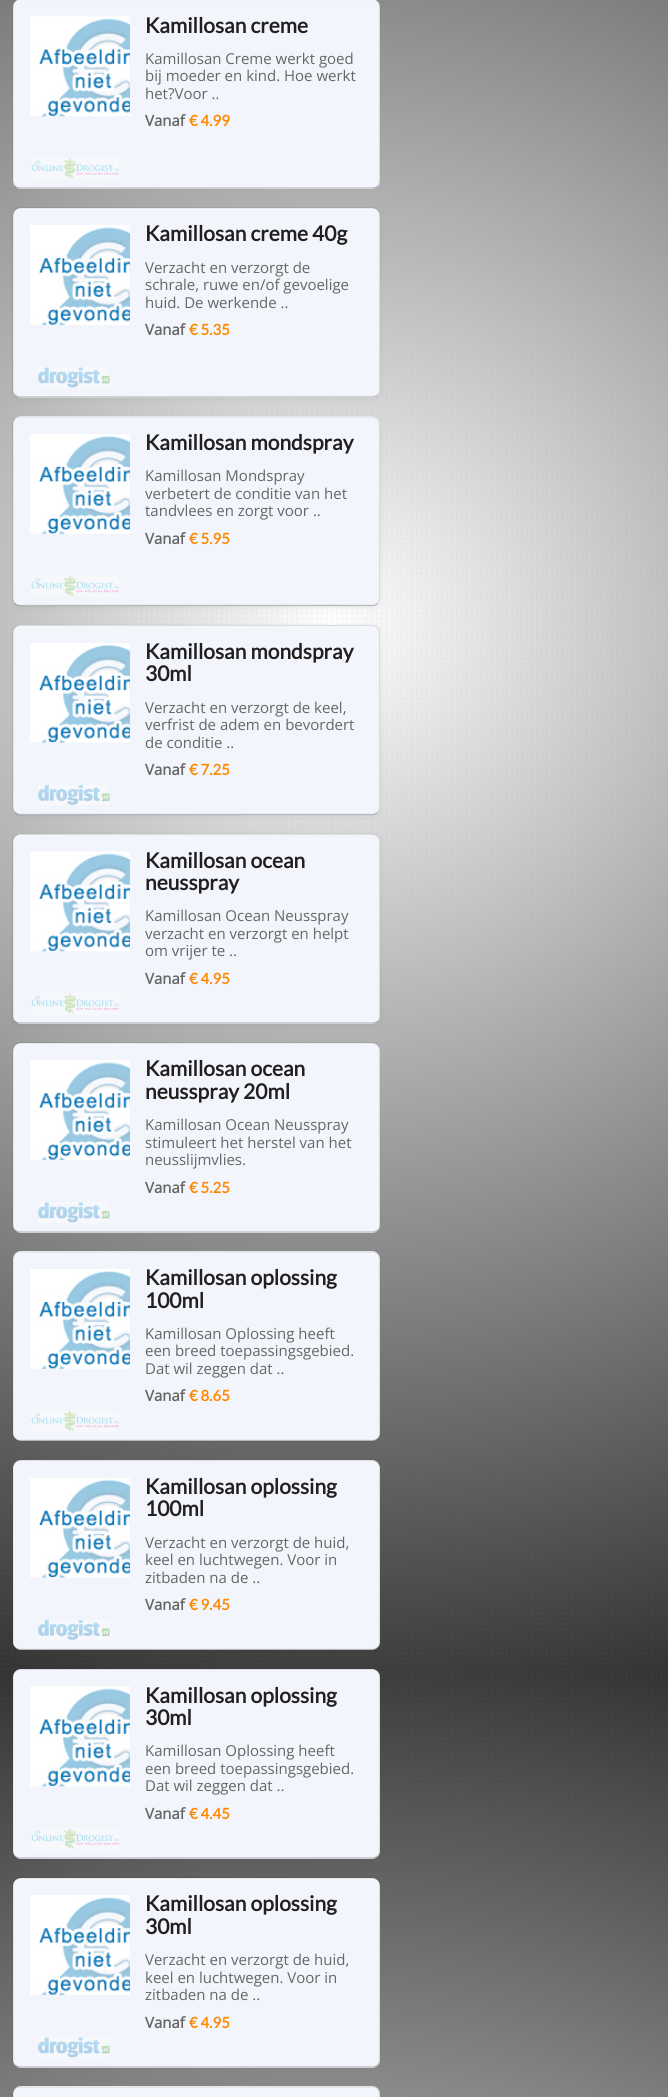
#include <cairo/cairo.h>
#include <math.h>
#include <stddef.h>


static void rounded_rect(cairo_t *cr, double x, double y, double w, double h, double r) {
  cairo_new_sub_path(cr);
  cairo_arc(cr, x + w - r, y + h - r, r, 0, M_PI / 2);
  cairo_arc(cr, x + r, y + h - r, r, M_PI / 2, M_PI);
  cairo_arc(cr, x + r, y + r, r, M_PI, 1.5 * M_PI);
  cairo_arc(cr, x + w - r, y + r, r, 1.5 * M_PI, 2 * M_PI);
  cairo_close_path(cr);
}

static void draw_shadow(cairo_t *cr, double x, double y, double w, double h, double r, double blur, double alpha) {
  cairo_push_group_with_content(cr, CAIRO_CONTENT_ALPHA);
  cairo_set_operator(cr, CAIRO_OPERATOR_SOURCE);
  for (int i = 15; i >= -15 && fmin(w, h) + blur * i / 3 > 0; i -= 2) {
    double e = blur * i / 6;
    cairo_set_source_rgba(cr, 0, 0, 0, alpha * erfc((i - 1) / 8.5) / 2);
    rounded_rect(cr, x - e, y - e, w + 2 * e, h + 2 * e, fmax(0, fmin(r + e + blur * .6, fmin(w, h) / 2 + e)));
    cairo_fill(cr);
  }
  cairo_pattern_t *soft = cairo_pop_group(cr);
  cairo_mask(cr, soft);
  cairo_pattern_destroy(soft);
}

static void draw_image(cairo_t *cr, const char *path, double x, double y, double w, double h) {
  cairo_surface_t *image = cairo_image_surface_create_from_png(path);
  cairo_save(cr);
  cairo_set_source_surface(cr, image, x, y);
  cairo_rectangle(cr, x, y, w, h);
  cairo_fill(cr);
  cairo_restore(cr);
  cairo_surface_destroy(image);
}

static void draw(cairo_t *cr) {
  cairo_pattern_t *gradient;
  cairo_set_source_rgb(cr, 1, 1, 1);
  cairo_paint(cr);
  gradient = cairo_pattern_create_radial(334, 624, 0, 334, 624, 1101);
  cairo_pattern_add_color_stop_rgba(gradient, 0, 1, 1, 1, 1);
  cairo_pattern_add_color_stop_rgba(gradient, 1, 51 / 255.0, 51 / 255.0, 51 / 255.0, 1);
  cairo_set_source(cr, gradient);
  cairo_pattern_destroy(gradient);
  cairo_rectangle(cr, 0, 0, 668, 1673);
  cairo_fill(cr);
  gradient = cairo_pattern_create_radial(334, 2721, 0, 334, 2721, 1101);
  cairo_pattern_add_color_stop_rgba(gradient, 0, 1, 1, 1, 1);
  cairo_pattern_add_color_stop_rgba(gradient, 1, 51 / 255.0, 51 / 255.0, 51 / 255.0, 1);
  cairo_set_source(cr, gradient);
  cairo_pattern_destroy(gradient);
  cairo_rectangle(cr, 0, 1673, 668, 424);
  cairo_fill(cr);
  draw_image(cr, "images/1.png", 1, 228, 667, 1607);
  cairo_set_source_rgb(cr, 242 / 255.0, 245 / 255.0, 251 / 255.0);
  rounded_rect(cr, 13, -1, 367, 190, 8);
  cairo_fill(cr);
  cairo_set_source_rgb(cr, 245 / 255.0, 247 / 255.0, 252 / 255.0);
  cairo_new_path(cr);
  cairo_move_to(cr, 20, 1);
  cairo_line_to(cr, 372, 1);
  cairo_curve_to(cr, 376, 1, 379, 4, 379, 8);
  cairo_line_to(cr, 379, 6);
  cairo_curve_to(cr, 379, 3, 376, 0, 373, 0);
  cairo_line_to(cr, 20, 0);
  cairo_curve_to(cr, 17, 0, 14, 3, 14, 6);
  cairo_line_to(cr, 14, 8);
  cairo_curve_to(cr, 14, 4, 17, 1, 20, 1);
  cairo_close_path(cr);
  cairo_fill(cr);
  cairo_new_path(cr);
  cairo_move_to(cr, 377.5, 186);
  cairo_curve_to(cr, 376, 187.5, 374.5, 188, 372.5, 188);
  cairo_line_to(cr, 20, 188);
  cairo_curve_to(cr, 18, 188, 16.5, 187.5, 15, 186);
  cairo_set_source_rgba(cr, 0, 0, 0, 0.25);
  cairo_set_line_width(cr, 1.2);
  cairo_stroke(cr);
  cairo_new_path(cr);
  cairo_move_to(cr, 15, 186);
  cairo_curve_to(cr, 14, 185, 13, 183, 13, 181);
  cairo_line_to(cr, 13, 6.5);
  cairo_curve_to(cr, 13, 4.5, 14, 2.5, 15, 1.5);
  cairo_curve_to(cr, 16.5, 0, 18, -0.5, 20, -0.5);
  cairo_line_to(cr, 372.5, -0.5);
  cairo_curve_to(cr, 374.5, -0.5, 376, 0, 377.5, 1.5);
  cairo_curve_to(cr, 378.5, 2.5, 379.5, 4.5, 379.5, 6);
  cairo_line_to(cr, 379.5, 181);
  cairo_curve_to(cr, 379.5, 183, 378.5, 185, 377.5, 186);
  cairo_set_source_rgba(cr, 0, 0, 0, 0.1);
  cairo_stroke(cr);
  draw_image(cr, "images/2.png", 30, 16, 100, 101);
  draw_image(cr, "images/3.png", 31, 158, 88, 22);
  cairo_set_source_rgb(cr, 0, 0, 0);
  draw_shadow(cr, 13, 209, 367, 190, 8, 3, 0.05);
  cairo_set_source_rgb(cr, 242 / 255.0, 245 / 255.0, 251 / 255.0);
  rounded_rect(cr, 13, 208, 367, 190, 8);
  cairo_fill(cr);
  cairo_set_source_rgb(cr, 245 / 255.0, 247 / 255.0, 252 / 255.0);
  cairo_new_path(cr);
  cairo_move_to(cr, 20, 210);
  cairo_line_to(cr, 372, 210);
  cairo_curve_to(cr, 376, 210, 379, 213, 379, 216);
  cairo_curve_to(cr, 379, 212, 377, 209, 373, 209);
  cairo_line_to(cr, 20, 209);
  cairo_curve_to(cr, 16, 209, 14, 212, 14, 216);
  cairo_curve_to(cr, 14, 213, 17, 210, 20, 210);
  cairo_close_path(cr);
  cairo_fill(cr);
  cairo_new_path(cr);
  cairo_move_to(cr, 377.5, 395);
  cairo_curve_to(cr, 376, 396, 374.5, 397, 372.5, 397);
  cairo_line_to(cr, 20, 397);
  cairo_curve_to(cr, 18, 397, 16.5, 396, 15, 395);
  cairo_set_source_rgba(cr, 0, 0, 0, 0.25);
  cairo_stroke(cr);
  cairo_new_path(cr);
  cairo_move_to(cr, 15, 395);
  cairo_curve_to(cr, 14, 393.5, 13, 392, 13, 390);
  cairo_line_to(cr, 13, 215);
  cairo_curve_to(cr, 13, 213, 14, 211.5, 15, 210);
  cairo_curve_to(cr, 16.5, 209, 18, 208, 20, 208);
  cairo_line_to(cr, 372.5, 208);
  cairo_curve_to(cr, 374.5, 208, 376, 209, 377.5, 210);
  cairo_curve_to(cr, 378.5, 211.5, 379.5, 213, 379.5, 215);
  cairo_line_to(cr, 379.5, 390);
  cairo_curve_to(cr, 379.5, 392, 378.5, 393.5, 377.5, 395);
  cairo_set_source_rgba(cr, 0, 0, 0, 0.1);
  cairo_stroke(cr);
  draw_image(cr, "images/4.png", 30, 225, 100, 100);
  draw_image(cr, "images/5.png", 38, 367, 72, 21);
  cairo_set_source_rgb(cr, 0, 0, 0);
  draw_shadow(cr, 13, 418, 367, 190, 8, 3, 0.05);
  cairo_set_source_rgb(cr, 242 / 255.0, 245 / 255.0, 251 / 255.0);
  rounded_rect(cr, 13, 416, 367, 190, 8);
  cairo_fill(cr);
  cairo_set_source_rgb(cr, 245 / 255.0, 247 / 255.0, 252 / 255.0);
  cairo_new_path(cr);
  cairo_move_to(cr, 20, 419);
  cairo_line_to(cr, 372, 419);
  cairo_curve_to(cr, 376, 419, 379, 422, 379, 425);
  cairo_curve_to(cr, 379, 421, 377, 418, 373, 418);
  cairo_line_to(cr, 20, 418);
  cairo_curve_to(cr, 16, 418, 14, 421, 14, 425);
  cairo_curve_to(cr, 14, 422, 17, 419, 20, 419);
  cairo_close_path(cr);
  cairo_fill(cr);
  cairo_new_path(cr);
  cairo_move_to(cr, 377.5, 603.5);
  cairo_curve_to(cr, 376, 605, 374.5, 605.5, 372.5, 605.5);
  cairo_line_to(cr, 20, 605.5);
  cairo_curve_to(cr, 18, 605.5, 16.5, 605, 15, 603.5);
  cairo_set_source_rgba(cr, 0, 0, 0, 0.25);
  cairo_stroke(cr);
  cairo_new_path(cr);
  cairo_move_to(cr, 15, 603.5);
  cairo_curve_to(cr, 14, 602.5, 13, 600.5, 13, 599);
  cairo_line_to(cr, 13, 424);
  cairo_curve_to(cr, 13, 422, 14, 420, 15, 419);
  cairo_curve_to(cr, 16.5, 417.5, 18, 417, 20, 417);
  cairo_line_to(cr, 372.5, 417);
  cairo_curve_to(cr, 374.5, 417, 376, 417.5, 377.5, 419);
  cairo_curve_to(cr, 378.5, 420, 379.5, 422, 379.5, 424);
  cairo_line_to(cr, 379.5, 599);
  cairo_curve_to(cr, 379.5, 600.5, 378.5, 602.5, 377.5, 603.5);
  cairo_set_source_rgba(cr, 0, 0, 0, 0.1);
  cairo_stroke(cr);
  draw_image(cr, "images/6.png", 30, 434, 100, 100);
  draw_image(cr, "images/7.png", 31, 575, 88, 22);
  cairo_set_source_rgb(cr, 0, 0, 0);
  draw_shadow(cr, 13, 626, 367, 190, 8, 3, 0.05);
  cairo_set_source_rgb(cr, 242 / 255.0, 245 / 255.0, 251 / 255.0);
  rounded_rect(cr, 13, 625, 367, 190, 8);
  cairo_fill(cr);
  cairo_set_source_rgb(cr, 245 / 255.0, 247 / 255.0, 252 / 255.0);
  cairo_new_path(cr);
  cairo_move_to(cr, 20, 628);
  cairo_line_to(cr, 372, 628);
  cairo_curve_to(cr, 376, 628, 379, 630, 379, 634);
  cairo_line_to(cr, 379, 632);
  cairo_curve_to(cr, 379, 629, 376, 626, 373, 626);
  cairo_line_to(cr, 20, 626);
  cairo_curve_to(cr, 17, 626, 14, 629, 14, 632);
  cairo_line_to(cr, 14, 634);
  cairo_curve_to(cr, 14, 630, 17, 628, 20, 628);
  cairo_close_path(cr);
  cairo_fill(cr);
  cairo_new_path(cr);
  cairo_move_to(cr, 377.5, 812.5);
  cairo_curve_to(cr, 376, 813.5, 374.5, 814.5, 372.5, 814.5);
  cairo_line_to(cr, 20, 814.5);
  cairo_curve_to(cr, 18, 814.5, 16.5, 813.5, 15, 812.5);
  cairo_set_source_rgba(cr, 0, 0, 0, 0.25);
  cairo_stroke(cr);
  cairo_new_path(cr);
  cairo_move_to(cr, 15, 812.5);
  cairo_curve_to(cr, 14, 811, 13, 809.5, 13, 807.5);
  cairo_line_to(cr, 13, 632.5);
  cairo_curve_to(cr, 13, 630.5, 14, 629, 15, 627.5);
  cairo_curve_to(cr, 16.5, 626.5, 18, 625.5, 20, 625.5);
  cairo_line_to(cr, 372.5, 625.5);
  cairo_curve_to(cr, 374.5, 625.5, 376, 626.5, 377.5, 627.5);
  cairo_curve_to(cr, 378.5, 629, 379.5, 630.5, 379.5, 632.5);
  cairo_line_to(cr, 379.5, 807.5);
  cairo_curve_to(cr, 379.5, 809.5, 378.5, 811, 377.5, 812.5);
  cairo_set_source_rgba(cr, 0, 0, 0, 0.1);
  cairo_stroke(cr);
  draw_image(cr, "images/8.png", 30, 643, 100, 100);
  draw_image(cr, "images/9.png", 38, 785, 72, 20);
  cairo_set_source_rgb(cr, 0, 0, 0);
  draw_shadow(cr, 13, 835, 367, 190, 8, 3, 0.05);
  cairo_set_source_rgb(cr, 242 / 255.0, 245 / 255.0, 251 / 255.0);
  rounded_rect(cr, 13, 834, 367, 190, 8);
  cairo_fill(cr);
  cairo_set_source_rgb(cr, 245 / 255.0, 247 / 255.0, 252 / 255.0);
  cairo_new_path(cr);
  cairo_move_to(cr, 20, 836);
  cairo_line_to(cr, 372, 836);
  cairo_curve_to(cr, 376, 836, 379, 839, 379, 842);
  cairo_curve_to(cr, 379, 838, 377, 835, 373, 835);
  cairo_line_to(cr, 20, 835);
  cairo_curve_to(cr, 16, 835, 14, 838, 14, 842);
  cairo_curve_to(cr, 14, 839, 17, 836, 20, 836);
  cairo_close_path(cr);
  cairo_fill(cr);
  cairo_new_path(cr);
  cairo_move_to(cr, 377.5, 1021);
  cairo_curve_to(cr, 376, 1022.5, 374.5, 1023, 372.5, 1023);
  cairo_line_to(cr, 20, 1023);
  cairo_curve_to(cr, 18, 1023, 16.5, 1022.5, 15, 1021);
  cairo_set_source_rgba(cr, 0, 0, 0, 0.25);
  cairo_stroke(cr);
  cairo_new_path(cr);
  cairo_move_to(cr, 15, 1021);
  cairo_curve_to(cr, 14, 1020, 13, 1018, 13, 1016);
  cairo_line_to(cr, 13, 841);
  cairo_curve_to(cr, 13, 839.5, 14, 837.5, 15, 836.5);
  cairo_curve_to(cr, 16.5, 835, 18, 834.5, 20, 834.5);
  cairo_line_to(cr, 372.5, 834.5);
  cairo_curve_to(cr, 374.5, 834.5, 376, 835, 377.5, 836.5);
  cairo_curve_to(cr, 378.5, 837.5, 379.5, 839.5, 379.5, 841);
  cairo_line_to(cr, 379.5, 1016);
  cairo_curve_to(cr, 379.5, 1018, 378.5, 1020, 377.5, 1021);
  cairo_set_source_rgba(cr, 0, 0, 0, 0.1);
  cairo_stroke(cr);
  draw_image(cr, "images/10.png", 30, 851, 100, 101);
  draw_image(cr, "images/3.png", 31, 993, 88, 22);
  cairo_set_source_rgb(cr, 242 / 255.0, 245 / 255.0, 251 / 255.0);
  rounded_rect(cr, 13, 1043, 367, 190, 8);
  cairo_fill(cr);
  cairo_set_source_rgb(cr, 245 / 255.0, 247 / 255.0, 252 / 255.0);
  cairo_new_path(cr);
  cairo_move_to(cr, 20, 1045);
  cairo_line_to(cr, 372, 1045);
  cairo_curve_to(cr, 376, 1045, 379, 1048, 379, 1051);
  cairo_curve_to(cr, 379, 1047, 377, 1044, 373, 1044);
  cairo_line_to(cr, 20, 1044);
  cairo_curve_to(cr, 16, 1044, 14, 1047, 14, 1051);
  cairo_curve_to(cr, 14, 1048, 17, 1045, 20, 1045);
  cairo_close_path(cr);
  cairo_fill(cr);
  cairo_new_path(cr);
  cairo_move_to(cr, 377.5, 1230);
  cairo_curve_to(cr, 376, 1231, 374.5, 1232, 372.5, 1232);
  cairo_line_to(cr, 20, 1232);
  cairo_curve_to(cr, 18, 1232, 16.5, 1231, 15, 1230);
  cairo_set_source_rgba(cr, 0, 0, 0, 0.25);
  cairo_stroke(cr);
  cairo_new_path(cr);
  cairo_move_to(cr, 15, 1230);
  cairo_curve_to(cr, 14, 1228.5, 13, 1227, 13, 1225);
  cairo_line_to(cr, 13, 1050);
  cairo_curve_to(cr, 13, 1048, 14, 1046.5, 15, 1045);
  cairo_curve_to(cr, 16.5, 1044, 18, 1043, 20, 1043);
  cairo_line_to(cr, 372.5, 1043);
  cairo_curve_to(cr, 374.5, 1043, 376, 1044, 377.5, 1045);
  cairo_curve_to(cr, 378.5, 1046.5, 379.5, 1048, 379.5, 1050);
  cairo_line_to(cr, 379.5, 1225);
  cairo_curve_to(cr, 379.5, 1227, 378.5, 1228.5, 377.5, 1230);
  cairo_set_source_rgba(cr, 0, 0, 0, 0.1);
  cairo_stroke(cr);
  draw_image(cr, "images/4.png", 30, 1060, 100, 100);
  draw_image(cr, "images/11.png", 38, 1202, 72, 21);
  cairo_set_source_rgb(cr, 242 / 255.0, 245 / 255.0, 251 / 255.0);
  rounded_rect(cr, 13, 1251, 367, 190, 8);
  cairo_fill(cr);
  cairo_set_source_rgb(cr, 245 / 255.0, 247 / 255.0, 252 / 255.0);
  cairo_new_path(cr);
  cairo_move_to(cr, 20, 1254);
  cairo_line_to(cr, 372, 1254);
  cairo_curve_to(cr, 376, 1254, 379, 1257, 379, 1260);
  cairo_curve_to(cr, 379, 1256, 377, 1253, 373, 1253);
  cairo_line_to(cr, 20, 1253);
  cairo_curve_to(cr, 16, 1253, 14, 1256, 14, 1260);
  cairo_curve_to(cr, 14, 1257, 17, 1254, 20, 1254);
  cairo_close_path(cr);
  cairo_fill(cr);
  cairo_new_path(cr);
  cairo_move_to(cr, 377.5, 1438.5);
  cairo_curve_to(cr, 376, 1440, 374.5, 1440.5, 372.5, 1440.5);
  cairo_line_to(cr, 20, 1440.5);
  cairo_curve_to(cr, 18, 1440.5, 16.5, 1440, 15, 1438.5);
  cairo_set_source_rgba(cr, 0, 0, 0, 0.25);
  cairo_stroke(cr);
  cairo_new_path(cr);
  cairo_move_to(cr, 15, 1438.5);
  cairo_curve_to(cr, 14, 1437.5, 13, 1435.5, 13, 1434);
  cairo_line_to(cr, 13, 1259);
  cairo_curve_to(cr, 13, 1257, 14, 1255, 15, 1254);
  cairo_curve_to(cr, 16.5, 1252.5, 18, 1252, 20, 1252);
  cairo_line_to(cr, 372.5, 1252);
  cairo_curve_to(cr, 374.5, 1252, 376, 1252.5, 377.5, 1254);
  cairo_curve_to(cr, 378.5, 1255, 379.5, 1257, 379.5, 1259);
  cairo_line_to(cr, 379.5, 1434);
  cairo_curve_to(cr, 379.5, 1435.5, 378.5, 1437.5, 377.5, 1438.5);
  cairo_set_source_rgba(cr, 0, 0, 0, 0.1);
  cairo_stroke(cr);
  draw_image(cr, "images/6.png", 30, 1269, 100, 100);
  draw_image(cr, "images/7.png", 31, 1410, 88, 22);
  cairo_set_source_rgb(cr, 242 / 255.0, 245 / 255.0, 251 / 255.0);
  rounded_rect(cr, 13, 1460, 367, 190, 8);
  cairo_fill(cr);
  cairo_set_source_rgb(cr, 245 / 255.0, 247 / 255.0, 252 / 255.0);
  cairo_new_path(cr);
  cairo_move_to(cr, 20, 1462);
  cairo_line_to(cr, 372, 1462);
  cairo_curve_to(cr, 376, 1462, 379, 1465, 379, 1469);
  cairo_line_to(cr, 379, 1467);
  cairo_curve_to(cr, 379, 1464, 376, 1461, 373, 1461);
  cairo_line_to(cr, 20, 1461);
  cairo_curve_to(cr, 17, 1461, 14, 1464, 14, 1467);
  cairo_line_to(cr, 14, 1469);
  cairo_curve_to(cr, 14, 1465, 17, 1462, 20, 1462);
  cairo_close_path(cr);
  cairo_fill(cr);
  cairo_new_path(cr);
  cairo_move_to(cr, 377.5, 1647.5);
  cairo_curve_to(cr, 376, 1648.5, 374.5, 1649.5, 372.5, 1649.5);
  cairo_line_to(cr, 20, 1649.5);
  cairo_curve_to(cr, 18, 1649.5, 16.5, 1648.5, 15, 1647.5);
  cairo_set_source_rgba(cr, 0, 0, 0, 0.25);
  cairo_stroke(cr);
  cairo_new_path(cr);
  cairo_move_to(cr, 15, 1647.5);
  cairo_curve_to(cr, 14, 1646, 13, 1644.5, 13, 1642.5);
  cairo_line_to(cr, 13, 1467.5);
  cairo_curve_to(cr, 13, 1465.5, 14, 1464, 15, 1462.5);
  cairo_curve_to(cr, 16.5, 1461.5, 18, 1460.5, 20, 1460.5);
  cairo_line_to(cr, 372.5, 1460.5);
  cairo_curve_to(cr, 374.5, 1460.5, 376, 1461.5, 377.5, 1462.5);
  cairo_curve_to(cr, 378.5, 1464, 379.5, 1465.5, 379.5, 1467.5);
  cairo_line_to(cr, 379.5, 1642.5);
  cairo_curve_to(cr, 379.5, 1644.5, 378.5, 1646, 377.5, 1647.5);
  cairo_set_source_rgba(cr, 0, 0, 0, 0.1);
  cairo_stroke(cr);
  draw_image(cr, "images/8.png", 30, 1478, 100, 100);
  draw_image(cr, "images/9.png", 38, 1620, 72, 20);
  cairo_set_source_rgb(cr, 242 / 255.0, 245 / 255.0, 251 / 255.0);
  rounded_rect(cr, 13, 1669, 367, 190, 8);
  cairo_fill(cr);
  cairo_set_source_rgb(cr, 245 / 255.0, 247 / 255.0, 252 / 255.0);
  cairo_new_path(cr);
  cairo_move_to(cr, 20, 1671);
  cairo_line_to(cr, 372, 1671);
  cairo_curve_to(cr, 376, 1671, 379, 1674, 379, 1678);
  cairo_line_to(cr, 379, 1676);
  cairo_curve_to(cr, 379, 1673, 376, 1670, 373, 1670);
  cairo_line_to(cr, 20, 1670);
  cairo_curve_to(cr, 17, 1670, 14, 1673, 14, 1676);
  cairo_line_to(cr, 14, 1678);
  cairo_curve_to(cr, 14, 1674, 17, 1671, 20, 1671);
  cairo_close_path(cr);
  cairo_fill(cr);
  cairo_new_path(cr);
  cairo_move_to(cr, 377.5, 1856);
  cairo_curve_to(cr, 376, 1857.5, 374.5, 1858, 372.5, 1858);
  cairo_line_to(cr, 20, 1858);
  cairo_curve_to(cr, 18, 1858, 16.5, 1857.5, 15, 1856);
  cairo_set_source_rgba(cr, 0, 0, 0, 0.25);
  cairo_stroke(cr);
  cairo_new_path(cr);
  cairo_move_to(cr, 15, 1856);
  cairo_curve_to(cr, 14, 1855, 13, 1853, 13, 1851);
  cairo_line_to(cr, 13, 1676);
  cairo_curve_to(cr, 13, 1674.5, 14, 1672.5, 15, 1671.5);
  cairo_curve_to(cr, 16.5, 1670, 18, 1669.5, 20, 1669.5);
  cairo_line_to(cr, 372.5, 1669.5);
  cairo_curve_to(cr, 374.5, 1669.5, 376, 1670, 377.5, 1671.5);
  cairo_curve_to(cr, 378.5, 1672.5, 379.5, 1674.5, 379.5, 1676);
  cairo_line_to(cr, 379.5, 1851);
  cairo_curve_to(cr, 379.5, 1853, 378.5, 1855, 377.5, 1856);
  cairo_set_source_rgba(cr, 0, 0, 0, 0.1);
  cairo_stroke(cr);
  draw_image(cr, "images/2.png", 30, 1686, 100, 101);
  draw_image(cr, "images/3.png", 31, 1828, 88, 22);
  cairo_set_source_rgb(cr, 242 / 255.0, 245 / 255.0, 251 / 255.0);
  rounded_rect(cr, 13, 1878, 367, 190, 8);
  cairo_fill(cr);
  cairo_set_source_rgb(cr, 245 / 255.0, 247 / 255.0, 252 / 255.0);
  cairo_new_path(cr);
  cairo_move_to(cr, 20, 1880);
  cairo_line_to(cr, 372, 1880);
  cairo_curve_to(cr, 376, 1880, 379, 1883, 379, 1886);
  cairo_curve_to(cr, 379, 1882, 377, 1879, 373, 1879);
  cairo_line_to(cr, 20, 1879);
  cairo_curve_to(cr, 16, 1879, 14, 1882, 14, 1886);
  cairo_curve_to(cr, 14, 1883, 17, 1880, 20, 1880);
  cairo_close_path(cr);
  cairo_fill(cr);
  cairo_new_path(cr);
  cairo_move_to(cr, 377.5, 2065);
  cairo_curve_to(cr, 376, 2066, 374.5, 2067, 372.5, 2067);
  cairo_line_to(cr, 20, 2067);
  cairo_curve_to(cr, 18, 2067, 16.5, 2066, 15, 2065);
  cairo_set_source_rgba(cr, 0, 0, 0, 0.25);
  cairo_stroke(cr);
  cairo_new_path(cr);
  cairo_move_to(cr, 15, 2065);
  cairo_curve_to(cr, 14, 2063.5, 13, 2062, 13, 2060);
  cairo_line_to(cr, 13, 1885);
  cairo_curve_to(cr, 13, 1883, 14, 1881.5, 15, 1880);
  cairo_curve_to(cr, 16.5, 1879, 18, 1878, 20, 1878);
  cairo_line_to(cr, 372.5, 1878);
  cairo_curve_to(cr, 374.5, 1878, 376, 1879, 377.5, 1880);
  cairo_curve_to(cr, 378.5, 1881.5, 379.5, 1883, 379.5, 1885);
  cairo_line_to(cr, 379.5, 2060);
  cairo_curve_to(cr, 379.5, 2062, 378.5, 2063.5, 377.5, 2065);
  cairo_set_source_rgba(cr, 0, 0, 0, 0.1);
  cairo_stroke(cr);
  draw_image(cr, "images/4.png", 30, 1895, 100, 100);
  draw_image(cr, "images/11.png", 38, 2037, 72, 21);
  cairo_set_source_rgb(cr, 242 / 255.0, 245 / 255.0, 251 / 255.0);
  rounded_rect(cr, 13, 2086, 367, 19, 8);
  cairo_fill(cr);
  cairo_set_source_rgb(cr, 245 / 255.0, 247 / 255.0, 252 / 255.0);
  cairo_new_path(cr);
  cairo_move_to(cr, 20, 2089);
  cairo_line_to(cr, 372, 2089);
  cairo_curve_to(cr, 376, 2089, 379, 2092, 379, 2095);
  cairo_curve_to(cr, 379, 2091, 377, 2088, 373, 2088);
  cairo_line_to(cr, 20, 2088);
  cairo_curve_to(cr, 16, 2088, 14, 2091, 14, 2095);
  cairo_curve_to(cr, 14, 2092, 17, 2089, 20, 2089);
  cairo_close_path(cr);
  cairo_fill(cr);
  cairo_new_path(cr);
  cairo_move_to(cr, 15, 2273.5);
  cairo_curve_to(cr, 14, 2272.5, 13, 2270.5, 13, 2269);
  cairo_line_to(cr, 13, 2094);
  cairo_curve_to(cr, 13, 2092, 14, 2090, 15, 2089);
  cairo_curve_to(cr, 16.5, 2087.5, 18, 2087, 20, 2087);
  cairo_line_to(cr, 372.5, 2087);
  cairo_curve_to(cr, 374.5, 2087, 376, 2087.5, 377.5, 2089);
  cairo_curve_to(cr, 378.5, 2090, 379.5, 2092, 379.5, 2094);
  cairo_line_to(cr, 379.5, 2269);
  cairo_curve_to(cr, 379.5, 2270.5, 378.5, 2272.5, 377.5, 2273.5);
  cairo_set_source_rgba(cr, 0, 0, 0, 0.1);
  cairo_stroke(cr);
  cairo_select_font_face(cr, "Lato", CAIRO_FONT_SLANT_NORMAL, CAIRO_FONT_WEIGHT_BOLD);
  cairo_set_font_size(cr, 21);
  cairo_set_source_rgb(cr, 35 / 255.0, 31 / 255.0, 32 / 255.0);
  cairo_move_to(cr, 145, 33);
  cairo_show_text(cr, "Kamillosan creme");
  cairo_select_font_face(cr, "Open Sans", CAIRO_FONT_SLANT_NORMAL, CAIRO_FONT_WEIGHT_NORMAL);
  cairo_set_font_size(cr, 15);
  cairo_set_source_rgb(cr, 102 / 255.0, 102 / 255.0, 102 / 255.0);
  cairo_move_to(cr, 145, 64);
  cairo_show_text(cr, "Kamillosan Creme werkt goed");
  cairo_move_to(cr, 145, 81);
  cairo_show_text(cr, "bij moeder en kind. Hoe werkt");
  cairo_move_to(cr, 145, 99);
  cairo_show_text(cr, "het?Voor ..");
  cairo_select_font_face(cr, "Open Sans", CAIRO_FONT_SLANT_NORMAL, CAIRO_FONT_WEIGHT_BOLD);
  cairo_move_to(cr, 145, 126);
  cairo_show_text(cr, "Vanaf");
  cairo_select_font_face(cr, "Lato", CAIRO_FONT_SLANT_NORMAL, CAIRO_FONT_WEIGHT_BOLD);
  cairo_set_source_rgb(cr, 1, 136 / 255.0, 0);
  cairo_move_to(cr, 189, 126);
  cairo_show_text(cr, "€ 4.99");
  cairo_set_font_size(cr, 21);
  cairo_set_source_rgb(cr, 35 / 255.0, 31 / 255.0, 32 / 255.0);
  cairo_move_to(cr, 145, 241);
  cairo_show_text(cr, "Kamillosan creme 40g");
  cairo_select_font_face(cr, "Open Sans", CAIRO_FONT_SLANT_NORMAL, CAIRO_FONT_WEIGHT_NORMAL);
  cairo_set_font_size(cr, 15);
  cairo_set_source_rgb(cr, 102 / 255.0, 102 / 255.0, 102 / 255.0);
  cairo_move_to(cr, 145, 273);
  cairo_show_text(cr, "Verzacht en verzorgt de");
  cairo_move_to(cr, 145, 290);
  cairo_show_text(cr, "schrale, ruwe en/of gevoelige");
  cairo_move_to(cr, 145, 308);
  cairo_show_text(cr, "huid. De werkende ..");
  cairo_select_font_face(cr, "Open Sans", CAIRO_FONT_SLANT_NORMAL, CAIRO_FONT_WEIGHT_BOLD);
  cairo_move_to(cr, 145, 335);
  cairo_show_text(cr, "Vanaf");
  cairo_select_font_face(cr, "Lato", CAIRO_FONT_SLANT_NORMAL, CAIRO_FONT_WEIGHT_BOLD);
  cairo_set_source_rgb(cr, 1, 136 / 255.0, 0);
  cairo_move_to(cr, 189, 335);
  cairo_show_text(cr, "€ 5.35");
  cairo_set_font_size(cr, 21);
  cairo_set_source_rgb(cr, 35 / 255.0, 31 / 255.0, 32 / 255.0);
  cairo_move_to(cr, 145, 450);
  cairo_show_text(cr, "Kamillosan mondspray");
  cairo_select_font_face(cr, "Open Sans", CAIRO_FONT_SLANT_NORMAL, CAIRO_FONT_WEIGHT_NORMAL);
  cairo_set_font_size(cr, 15);
  cairo_set_source_rgb(cr, 102 / 255.0, 102 / 255.0, 102 / 255.0);
  cairo_move_to(cr, 145, 481);
  cairo_show_text(cr, "Kamillosan Mondspray");
  cairo_move_to(cr, 145, 499);
  cairo_show_text(cr, "verbetert de conditie van het");
  cairo_move_to(cr, 145, 516);
  cairo_show_text(cr, "tandvlees en zorgt voor ..");
  cairo_select_font_face(cr, "Open Sans", CAIRO_FONT_SLANT_NORMAL, CAIRO_FONT_WEIGHT_BOLD);
  cairo_move_to(cr, 145, 544);
  cairo_show_text(cr, "Vanaf");
  cairo_select_font_face(cr, "Lato", CAIRO_FONT_SLANT_NORMAL, CAIRO_FONT_WEIGHT_BOLD);
  cairo_set_source_rgb(cr, 1, 136 / 255.0, 0);
  cairo_move_to(cr, 189, 544);
  cairo_show_text(cr, "€ 5.95");
  cairo_set_font_size(cr, 21);
  cairo_set_source_rgb(cr, 35 / 255.0, 31 / 255.0, 32 / 255.0);
  cairo_move_to(cr, 145, 659);
  cairo_show_text(cr, "Kamillosan mondspray");
  cairo_move_to(cr, 145, 681);
  cairo_show_text(cr, "30ml");
  cairo_select_font_face(cr, "Open Sans", CAIRO_FONT_SLANT_NORMAL, CAIRO_FONT_WEIGHT_NORMAL);
  cairo_set_font_size(cr, 15);
  cairo_set_source_rgb(cr, 102 / 255.0, 102 / 255.0, 102 / 255.0);
  cairo_move_to(cr, 145, 713);
  cairo_show_text(cr, "Verzacht en verzorgt de keel,");
  cairo_move_to(cr, 145, 730);
  cairo_show_text(cr, "verfrist de adem en bevordert");
  cairo_move_to(cr, 145, 748);
  cairo_show_text(cr, "de conditie ..");
  cairo_select_font_face(cr, "Open Sans", CAIRO_FONT_SLANT_NORMAL, CAIRO_FONT_WEIGHT_BOLD);
  cairo_move_to(cr, 145, 775);
  cairo_show_text(cr, "Vanaf");
  cairo_select_font_face(cr, "Lato", CAIRO_FONT_SLANT_NORMAL, CAIRO_FONT_WEIGHT_BOLD);
  cairo_set_source_rgb(cr, 1, 136 / 255.0, 0);
  cairo_move_to(cr, 189, 775);
  cairo_show_text(cr, "€ 7.25");
  cairo_set_font_size(cr, 21);
  cairo_set_source_rgb(cr, 35 / 255.0, 31 / 255.0, 32 / 255.0);
  cairo_move_to(cr, 145, 868);
  cairo_show_text(cr, "Kamillosan ocean");
  cairo_move_to(cr, 145, 890);
  cairo_show_text(cr, "neusspray");
  cairo_select_font_face(cr, "Open Sans", CAIRO_FONT_SLANT_NORMAL, CAIRO_FONT_WEIGHT_NORMAL);
  cairo_set_font_size(cr, 15);
  cairo_set_source_rgb(cr, 102 / 255.0, 102 / 255.0, 102 / 255.0);
  cairo_move_to(cr, 145, 921);
  cairo_show_text(cr, "Kamillosan Ocean Neusspray");
  cairo_move_to(cr, 145, 939);
  cairo_show_text(cr, "verzacht en verzorgt en helpt");
  cairo_move_to(cr, 145, 956);
  cairo_show_text(cr, "om vrijer te ..");
  cairo_select_font_face(cr, "Open Sans", CAIRO_FONT_SLANT_NORMAL, CAIRO_FONT_WEIGHT_BOLD);
  cairo_move_to(cr, 145, 984);
  cairo_show_text(cr, "Vanaf");
  cairo_select_font_face(cr, "Lato", CAIRO_FONT_SLANT_NORMAL, CAIRO_FONT_WEIGHT_BOLD);
  cairo_set_source_rgb(cr, 1, 136 / 255.0, 0);
  cairo_move_to(cr, 189, 984);
  cairo_show_text(cr, "€ 4.95");
  cairo_set_font_size(cr, 21);
  cairo_set_source_rgb(cr, 35 / 255.0, 31 / 255.0, 32 / 255.0);
  cairo_move_to(cr, 145, 1076);
  cairo_show_text(cr, "Kamillosan ocean");
  cairo_move_to(cr, 145, 1099);
  cairo_show_text(cr, "neusspray 20ml");
  cairo_select_font_face(cr, "Open Sans", CAIRO_FONT_SLANT_NORMAL, CAIRO_FONT_WEIGHT_NORMAL);
  cairo_set_font_size(cr, 15);
  cairo_set_source_rgb(cr, 102 / 255.0, 102 / 255.0, 102 / 255.0);
  cairo_move_to(cr, 145, 1130);
  cairo_show_text(cr, "Kamillosan Ocean Neusspray");
  cairo_move_to(cr, 145, 1148);
  cairo_show_text(cr, "stimuleert het herstel van het");
  cairo_move_to(cr, 145, 1165);
  cairo_show_text(cr, "neusslijmvlies.");
  cairo_select_font_face(cr, "Open Sans", CAIRO_FONT_SLANT_NORMAL, CAIRO_FONT_WEIGHT_BOLD);
  cairo_move_to(cr, 145, 1193);
  cairo_show_text(cr, "Vanaf");
  cairo_select_font_face(cr, "Lato", CAIRO_FONT_SLANT_NORMAL, CAIRO_FONT_WEIGHT_BOLD);
  cairo_set_source_rgb(cr, 1, 136 / 255.0, 0);
  cairo_move_to(cr, 189, 1193);
  cairo_show_text(cr, "€ 5.25");
  cairo_set_font_size(cr, 21);
  cairo_set_source_rgb(cr, 35 / 255.0, 31 / 255.0, 32 / 255.0);
  cairo_move_to(cr, 145, 1285);
  cairo_show_text(cr, "Kamillosan oplossing");
  cairo_move_to(cr, 145, 1308);
  cairo_show_text(cr, "100ml");
  cairo_select_font_face(cr, "Open Sans", CAIRO_FONT_SLANT_NORMAL, CAIRO_FONT_WEIGHT_NORMAL);
  cairo_set_font_size(cr, 15);
  cairo_set_source_rgb(cr, 102 / 255.0, 102 / 255.0, 102 / 255.0);
  cairo_move_to(cr, 145, 1339);
  cairo_show_text(cr, "Kamillosan Oplossing heeft");
  cairo_move_to(cr, 145, 1356);
  cairo_show_text(cr, "een breed toepassingsgebied.");
  cairo_move_to(cr, 145, 1374);
  cairo_show_text(cr, "Dat wil zeggen dat ..");
  cairo_select_font_face(cr, "Open Sans", CAIRO_FONT_SLANT_NORMAL, CAIRO_FONT_WEIGHT_BOLD);
  cairo_move_to(cr, 145, 1401);
  cairo_show_text(cr, "Vanaf");
  cairo_select_font_face(cr, "Lato", CAIRO_FONT_SLANT_NORMAL, CAIRO_FONT_WEIGHT_BOLD);
  cairo_set_source_rgb(cr, 1, 136 / 255.0, 0);
  cairo_move_to(cr, 189, 1401);
  cairo_show_text(cr, "€ 8.65");
  cairo_set_font_size(cr, 21);
  cairo_set_source_rgb(cr, 35 / 255.0, 31 / 255.0, 32 / 255.0);
  cairo_move_to(cr, 145, 1494);
  cairo_show_text(cr, "Kamillosan oplossing");
  cairo_move_to(cr, 145, 1516);
  cairo_show_text(cr, "100ml");
  cairo_select_font_face(cr, "Open Sans", CAIRO_FONT_SLANT_NORMAL, CAIRO_FONT_WEIGHT_NORMAL);
  cairo_set_font_size(cr, 15);
  cairo_set_source_rgb(cr, 102 / 255.0, 102 / 255.0, 102 / 255.0);
  cairo_move_to(cr, 145, 1548);
  cairo_show_text(cr, "Verzacht en verzorgt de huid,");
  cairo_move_to(cr, 145, 1565);
  cairo_show_text(cr, "keel en luchtwegen. Voor in");
  cairo_move_to(cr, 145, 1583);
  cairo_show_text(cr, "zitbaden na de ..");
  cairo_select_font_face(cr, "Open Sans", CAIRO_FONT_SLANT_NORMAL, CAIRO_FONT_WEIGHT_BOLD);
  cairo_move_to(cr, 145, 1610);
  cairo_show_text(cr, "Vanaf");
  cairo_select_font_face(cr, "Lato", CAIRO_FONT_SLANT_NORMAL, CAIRO_FONT_WEIGHT_BOLD);
  cairo_set_source_rgb(cr, 1, 136 / 255.0, 0);
  cairo_move_to(cr, 189, 1610);
  cairo_show_text(cr, "€ 9.45");
  cairo_set_font_size(cr, 21);
  cairo_set_source_rgb(cr, 35 / 255.0, 31 / 255.0, 32 / 255.0);
  cairo_move_to(cr, 145, 1703);
  cairo_show_text(cr, "Kamillosan oplossing");
  cairo_move_to(cr, 145, 1725);
  cairo_show_text(cr, "30ml");
  cairo_select_font_face(cr, "Open Sans", CAIRO_FONT_SLANT_NORMAL, CAIRO_FONT_WEIGHT_NORMAL);
  cairo_set_font_size(cr, 15);
  cairo_set_source_rgb(cr, 102 / 255.0, 102 / 255.0, 102 / 255.0);
  cairo_move_to(cr, 145, 1756);
  cairo_show_text(cr, "Kamillosan Oplossing heeft");
  cairo_move_to(cr, 145, 1774);
  cairo_show_text(cr, "een breed toepassingsgebied.");
  cairo_move_to(cr, 145, 1791);
  cairo_show_text(cr, "Dat wil zeggen dat ..");
  cairo_select_font_face(cr, "Open Sans", CAIRO_FONT_SLANT_NORMAL, CAIRO_FONT_WEIGHT_BOLD);
  cairo_move_to(cr, 145, 1819);
  cairo_show_text(cr, "Vanaf");
  cairo_select_font_face(cr, "Lato", CAIRO_FONT_SLANT_NORMAL, CAIRO_FONT_WEIGHT_BOLD);
  cairo_set_source_rgb(cr, 1, 136 / 255.0, 0);
  cairo_move_to(cr, 189, 1819);
  cairo_show_text(cr, "€ 4.45");
  cairo_set_font_size(cr, 21);
  cairo_set_source_rgb(cr, 35 / 255.0, 31 / 255.0, 32 / 255.0);
  cairo_move_to(cr, 145, 1911);
  cairo_show_text(cr, "Kamillosan oplossing");
  cairo_move_to(cr, 145, 1934);
  cairo_show_text(cr, "30ml");
  cairo_select_font_face(cr, "Open Sans", CAIRO_FONT_SLANT_NORMAL, CAIRO_FONT_WEIGHT_NORMAL);
  cairo_set_font_size(cr, 15);
  cairo_set_source_rgb(cr, 102 / 255.0, 102 / 255.0, 102 / 255.0);
  cairo_move_to(cr, 145, 1965);
  cairo_show_text(cr, "Verzacht en verzorgt de huid,");
  cairo_move_to(cr, 145, 1983);
  cairo_show_text(cr, "keel en luchtwegen. Voor in");
  cairo_move_to(cr, 145, 2000);
  cairo_show_text(cr, "zitbaden na de ..");
  cairo_select_font_face(cr, "Open Sans", CAIRO_FONT_SLANT_NORMAL, CAIRO_FONT_WEIGHT_BOLD);
  cairo_move_to(cr, 145, 2028);
  cairo_show_text(cr, "Vanaf");
  cairo_select_font_face(cr, "Lato", CAIRO_FONT_SLANT_NORMAL, CAIRO_FONT_WEIGHT_BOLD);
  cairo_set_source_rgb(cr, 1, 136 / 255.0, 0);
  cairo_move_to(cr, 189, 2028);
  cairo_show_text(cr, "€ 4.95");
}

int main(void) {
  cairo_surface_t *surface = cairo_image_surface_create(CAIRO_FORMAT_RGB24, 668, 2097);
  cairo_t *cr = cairo_create(surface);
  cairo_font_options_t *options = cairo_font_options_create();
  cairo_font_options_set_hint_metrics(options, CAIRO_HINT_METRICS_OFF);
  cairo_font_options_set_hint_style(options, CAIRO_HINT_STYLE_NONE);
  cairo_set_font_options(cr, options);
  cairo_set_miter_limit(cr, 4);
  draw(cr);
  cairo_surface_write_to_png(surface, "out.png");
  cairo_font_options_destroy(options);
  cairo_destroy(cr);
  cairo_surface_destroy(surface);
  return 0;
}
